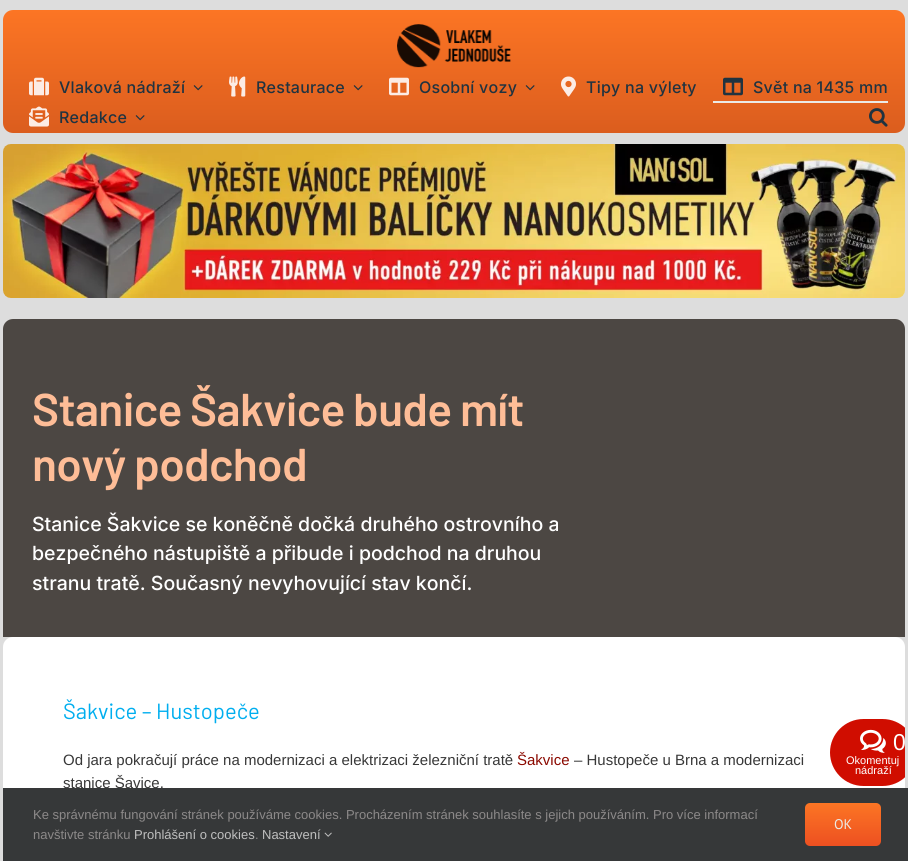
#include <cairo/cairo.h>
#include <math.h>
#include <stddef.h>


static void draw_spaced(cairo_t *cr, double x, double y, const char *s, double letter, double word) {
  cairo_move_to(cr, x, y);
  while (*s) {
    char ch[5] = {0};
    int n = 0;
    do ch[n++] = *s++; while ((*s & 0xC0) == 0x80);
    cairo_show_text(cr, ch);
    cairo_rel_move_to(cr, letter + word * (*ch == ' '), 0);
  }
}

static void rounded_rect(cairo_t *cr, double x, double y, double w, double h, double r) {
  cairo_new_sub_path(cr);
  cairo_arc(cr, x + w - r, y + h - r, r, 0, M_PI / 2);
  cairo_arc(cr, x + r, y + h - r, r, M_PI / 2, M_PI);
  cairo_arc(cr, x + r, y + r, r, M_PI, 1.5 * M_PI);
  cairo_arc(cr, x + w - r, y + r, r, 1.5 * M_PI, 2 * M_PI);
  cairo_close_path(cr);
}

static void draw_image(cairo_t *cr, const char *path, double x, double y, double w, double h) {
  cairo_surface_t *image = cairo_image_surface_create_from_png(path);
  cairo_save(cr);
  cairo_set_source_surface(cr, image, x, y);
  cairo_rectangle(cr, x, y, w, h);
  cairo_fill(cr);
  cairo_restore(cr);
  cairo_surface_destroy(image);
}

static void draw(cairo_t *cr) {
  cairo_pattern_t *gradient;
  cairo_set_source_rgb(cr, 221 / 255.0, 221 / 255.0, 221 / 255.0);
  cairo_paint(cr);
  gradient = cairo_pattern_create_linear(454, 10, 454, 133);
  cairo_pattern_add_color_stop_rgba(gradient, 0, 252 / 255.0, 117 / 255.0, 36 / 255.0, 1);
  cairo_pattern_add_color_stop_rgba(gradient, 1, 219 / 255.0, 93 / 255.0, 30 / 255.0, 1);
  cairo_set_source(cr, gradient);
  cairo_pattern_destroy(gradient);
  rounded_rect(cr, 3, 10, 902, 123, 10);
  cairo_fill(cr);
  draw_image(cr, "images/1.png", 397, 24, 114, 44);
  draw_image(cr, "images/2.png", 29, 77, 20, 19);
  draw_image(cr, "images/3.png", 193, 85, 10, 6);
  draw_image(cr, "images/4.png", 229, 76, 17, 21);
  draw_image(cr, "images/3.png", 353, 85, 10, 6);
  draw_image(cr, "images/5.png", 389, 77, 20, 19);
  draw_image(cr, "images/3.png", 525, 85, 10, 6);
  draw_image(cr, "images/6.png", 561, 76, 15, 21);
  draw_image(cr, "images/7.png", 723, 77, 20, 19);
  cairo_set_source_rgb(cr, 235 / 255.0, 235 / 255.0, 230 / 255.0);
  cairo_rectangle(cr, 713, 101, 175, 2);
  cairo_fill(cr);
  draw_image(cr, "images/8.png", 29, 106, 20, 21);
  draw_image(cr, "images/9.png", 135, 115, 10, 6);
  draw_image(cr, "images/10.png", 869, 108, 19, 19);
  draw_image(cr, "images/11.png", 3, 144, 902, 154);
  cairo_set_source_rgb(cr, 76 / 255.0, 71 / 255.0, 67 / 255.0);
  cairo_new_path(cr);
  cairo_move_to(cr, 13, 319);
  cairo_line_to(cr, 895, 319);
  cairo_curve_to(cr, 900.5, 319, 905, 323.5, 905, 329);
  cairo_line_to(cr, 905, 637);
  cairo_line_to(cr, 3, 637);
  cairo_line_to(cr, 3, 329);
  cairo_curve_to(cr, 3, 323.5, 7.5, 319, 13, 319);
  cairo_close_path(cr);
  cairo_fill(cr);
  cairo_set_source_rgb(cr, 1, 1, 1);
  rounded_rect(cr, 3, 637, 902, 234, 10);
  cairo_fill(cr);
  cairo_save(cr);
  cairo_rectangle(cr, 3, 0, 902, 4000);
  cairo_clip(cr);
  cairo_set_source_rgb(cr, 208 / 255.0, 13 / 255.0, 0);
  rounded_rect(cr, 830, 719, 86, 67, 33.5);
  cairo_fill(cr);
  cairo_restore(cr);
  draw_image(cr, "images/12.png", 860, 729, 26, 24);
  cairo_select_font_face(cr, "Inter Medium", CAIRO_FONT_SLANT_NORMAL, CAIRO_FONT_WEIGHT_NORMAL);
  cairo_set_font_size(cr, 16);
  cairo_set_source_rgb(cr, 32 / 255.0, 51 / 255.0, 64 / 255.0);
  draw_spaced(cr, 59, 93, "Vlaková nádraží", 0.25, 0);
  draw_spaced(cr, 256, 93, "Restaurace", 0.25, 0);
  draw_spaced(cr, 419, 93, "Osobní vozy", 0.25, 0);
  draw_spaced(cr, 586, 93, "Tipy na výlety", 0.25, 0);
  draw_spaced(cr, 753, 93, "Svět na 1435 mm", 0.25, 0);
  draw_spaced(cr, 59, 123, "Redakce", 0.25, 0);
  cairo_select_font_face(cr, "Barlow SemiBold", CAIRO_FONT_SLANT_NORMAL, CAIRO_FONT_WEIGHT_NORMAL);
  cairo_set_font_size(cr, 46);
  cairo_set_source_rgb(cr, 254 / 255.0, 189 / 255.0, 151 / 255.0);
  draw_spaced(cr, 32, 426, "Stanice Šakvice bude mít", -0.7, 0);
  draw_spaced(cr, 32, 481, "nový podchod", -0.7, 0);
  cairo_select_font_face(cr, "Inter Medium", CAIRO_FONT_SLANT_NORMAL, CAIRO_FONT_WEIGHT_NORMAL);
  cairo_set_font_size(cr, 19.5);
  cairo_set_source_rgb(cr, 1, 1, 1);
  cairo_move_to(cr, 32, 531);
  cairo_show_text(cr, "Stanice Šakvice se koněčně dočká druhého ostrovního a");
  cairo_move_to(cr, 32, 560);
  cairo_show_text(cr, "bezpečného nástupiště a přibude i podchod na druhou");
  cairo_move_to(cr, 32, 590);
  cairo_show_text(cr, "stranu tratě. Současný nevyhovující stav končí.");
  cairo_select_font_face(cr, "Barlow", CAIRO_FONT_SLANT_NORMAL, CAIRO_FONT_WEIGHT_NORMAL);
  cairo_set_font_size(cr, 22);
  cairo_set_source_rgb(cr, 0, 174 / 255.0, 239 / 255.0);
  cairo_move_to(cr, 63, 719);
  cairo_show_text(cr, "Šakvice – Hustopeče");
  cairo_select_font_face(cr, "Liberation Sans", CAIRO_FONT_SLANT_NORMAL, CAIRO_FONT_WEIGHT_NORMAL);
  cairo_set_font_size(cr, 15);
  cairo_set_source_rgb(cr, 56 / 255.0, 56 / 255.0, 56 / 255.0);
  cairo_move_to(cr, 63, 765);
  cairo_show_text(cr, "Od jara pokračují práce na modernizaci a elektrizaci železniční tratě");
  cairo_set_source_rgb(cr, 139 / 255.0, 9 / 255.0, 0);
  cairo_move_to(cr, 517, 765);
  cairo_show_text(cr, "Šakvice");
  cairo_set_source_rgb(cr, 56 / 255.0, 56 / 255.0, 56 / 255.0);
  cairo_move_to(cr, 574, 765);
  cairo_show_text(cr, "– Hustopeče u Brna a modernizaci");
  cairo_move_to(cr, 63, 788);
  cairo_show_text(cr, "stanice Šavice.");
  cairo_set_font_size(cr, 23);
  cairo_set_source_rgb(cr, 1, 1, 1);
  cairo_move_to(cr, 893, 750);
  cairo_show_text(cr, "0");
  cairo_set_font_size(cr, 11);
  cairo_move_to(cr, 846, 764);
  cairo_show_text(cr, "Okomentuj");
  cairo_move_to(cr, 855, 774);
  cairo_show_text(cr, "nádraží");
  cairo_set_source_rgb(cr, 54 / 255.0, 56 / 255.0, 57 / 255.0);
  cairo_rectangle(cr, 3, 788, 905, 73);
  cairo_fill(cr);
  cairo_set_font_size(cr, 13);
  cairo_set_source_rgb(cr, 140 / 255.0, 137 / 255.0, 137 / 255.0);
  cairo_move_to(cr, 33, 819);
  cairo_show_text(cr, "Ke správnému fungování stránek používáme cookies. Procházením stránek souhlasíte s jejich používáním. Pro více informací");
  cairo_move_to(cr, 33, 839);
  cairo_show_text(cr, "navštivte stránku");
  cairo_set_source_rgb(cr, 191 / 255.0, 191 / 255.0, 191 / 255.0);
  cairo_move_to(cr, 134, 839);
  cairo_show_text(cr, "Prohlášení o cookies");
  cairo_move_to(cr, 262, 839);
  cairo_show_text(cr, "Nastavení");
  draw_image(cr, "images/13.png", 324, 832, 8, 5);
  cairo_set_source_rgb(cr, 140 / 255.0, 137 / 255.0, 137 / 255.0);
  cairo_move_to(cr, 255, 839);
  cairo_show_text(cr, ".");
  gradient = cairo_pattern_create_linear(843, 803, 843, 846);
  cairo_pattern_add_color_stop_rgba(gradient, 0, 252 / 255.0, 117 / 255.0, 36 / 255.0, 1);
  cairo_pattern_add_color_stop_rgba(gradient, 1, 237 / 255.0, 80 / 255.0, 33 / 255.0, 1);
  cairo_set_source(cr, gradient);
  cairo_pattern_destroy(gradient);
  rounded_rect(cr, 805, 803, 76, 43, 5);
  cairo_fill(cr);
  cairo_select_font_face(cr, "PT Sans", CAIRO_FONT_SLANT_NORMAL, CAIRO_FONT_WEIGHT_NORMAL);
  cairo_set_font_size(cr, 14);
  cairo_set_source_rgb(cr, 235 / 255.0, 235 / 255.0, 230 / 255.0);
  cairo_move_to(cr, 834, 829);
  cairo_show_text(cr, "OK");
}

int main(void) {
  cairo_surface_t *surface = cairo_image_surface_create(CAIRO_FORMAT_RGB24, 908, 861);
  cairo_t *cr = cairo_create(surface);
  cairo_font_options_t *options = cairo_font_options_create();
  cairo_font_options_set_hint_metrics(options, CAIRO_HINT_METRICS_OFF);
  cairo_font_options_set_hint_style(options, CAIRO_HINT_STYLE_NONE);
  cairo_set_font_options(cr, options);
  cairo_set_miter_limit(cr, 4);
  draw(cr);
  cairo_surface_write_to_png(surface, "out.png");
  cairo_font_options_destroy(options);
  cairo_destroy(cr);
  cairo_surface_destroy(surface);
  return 0;
}
